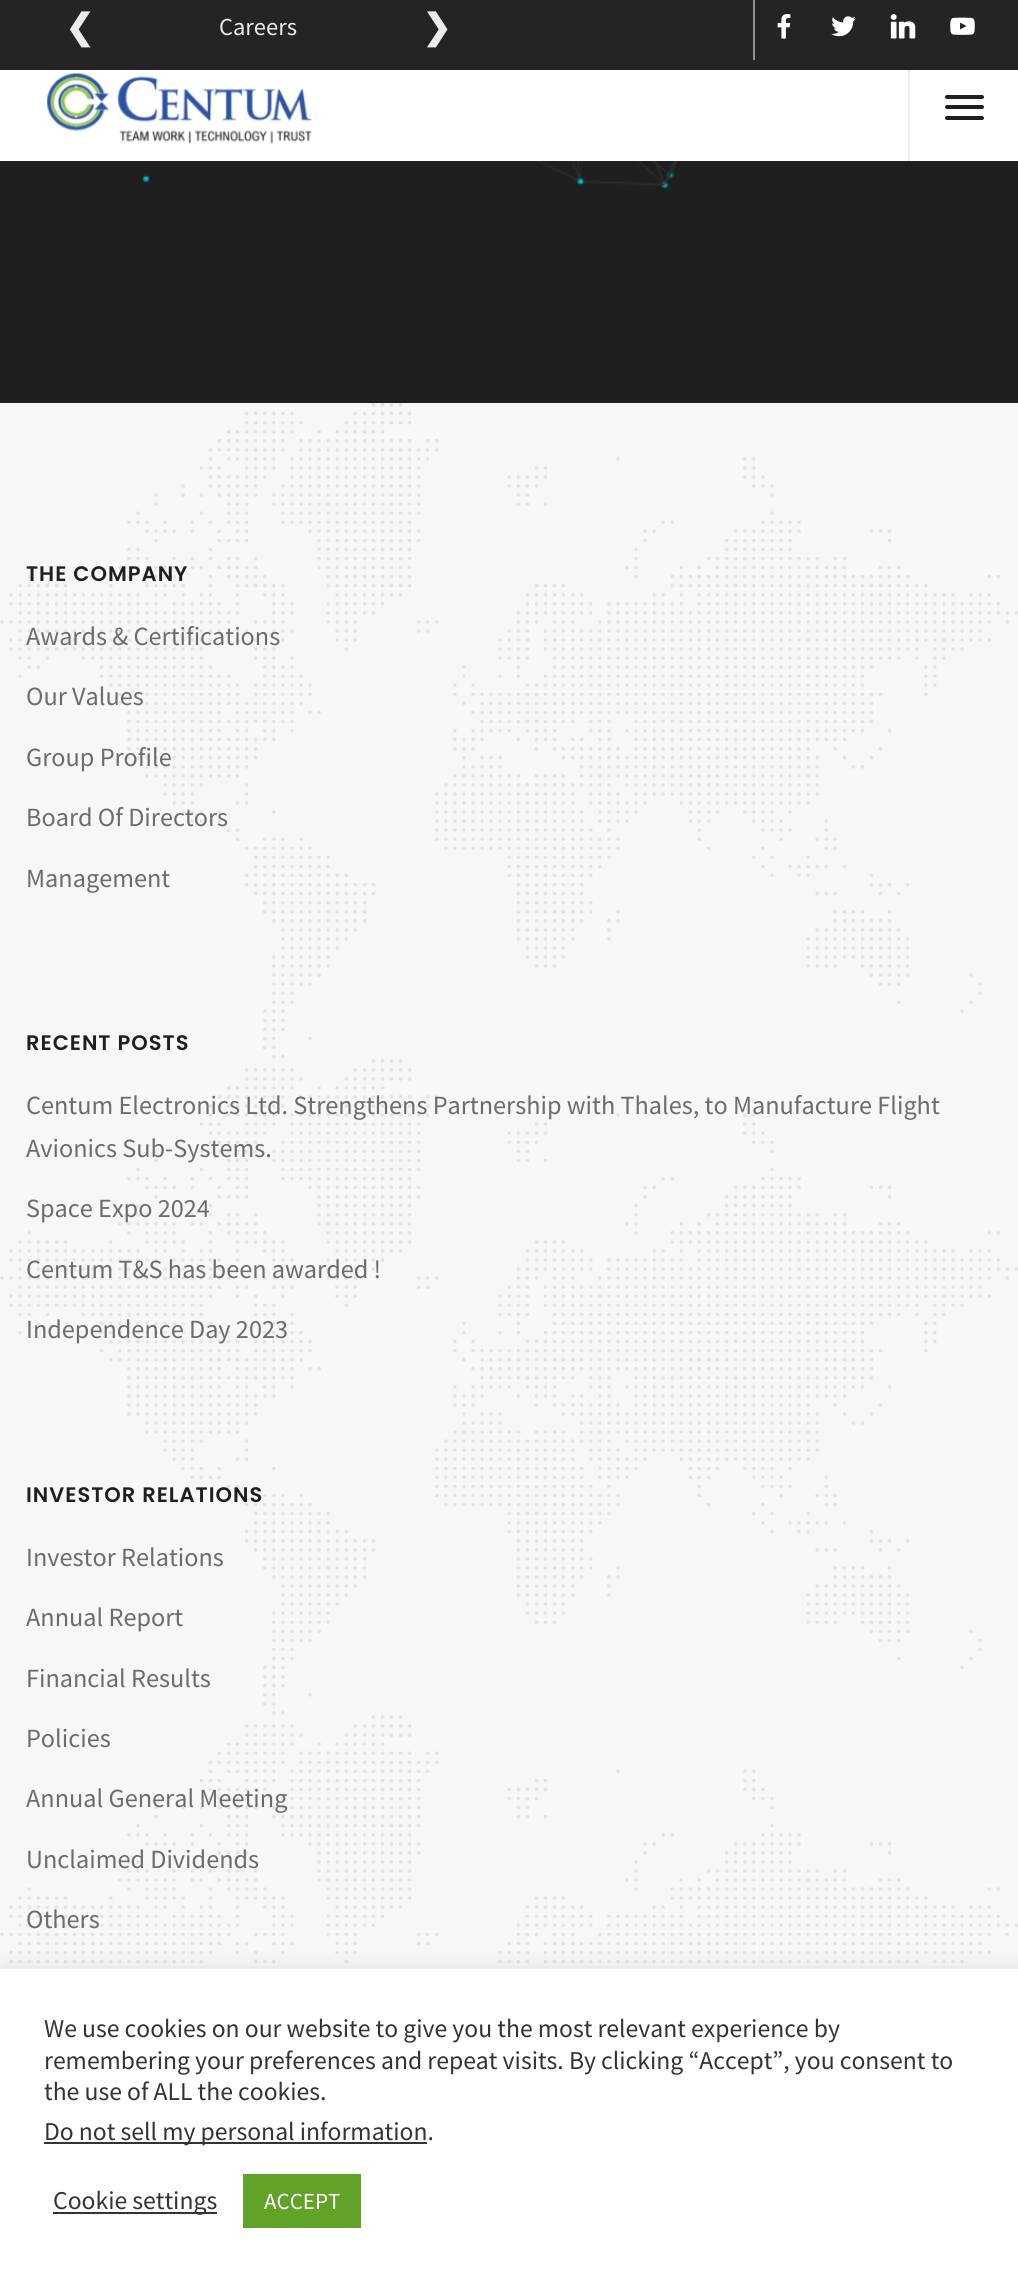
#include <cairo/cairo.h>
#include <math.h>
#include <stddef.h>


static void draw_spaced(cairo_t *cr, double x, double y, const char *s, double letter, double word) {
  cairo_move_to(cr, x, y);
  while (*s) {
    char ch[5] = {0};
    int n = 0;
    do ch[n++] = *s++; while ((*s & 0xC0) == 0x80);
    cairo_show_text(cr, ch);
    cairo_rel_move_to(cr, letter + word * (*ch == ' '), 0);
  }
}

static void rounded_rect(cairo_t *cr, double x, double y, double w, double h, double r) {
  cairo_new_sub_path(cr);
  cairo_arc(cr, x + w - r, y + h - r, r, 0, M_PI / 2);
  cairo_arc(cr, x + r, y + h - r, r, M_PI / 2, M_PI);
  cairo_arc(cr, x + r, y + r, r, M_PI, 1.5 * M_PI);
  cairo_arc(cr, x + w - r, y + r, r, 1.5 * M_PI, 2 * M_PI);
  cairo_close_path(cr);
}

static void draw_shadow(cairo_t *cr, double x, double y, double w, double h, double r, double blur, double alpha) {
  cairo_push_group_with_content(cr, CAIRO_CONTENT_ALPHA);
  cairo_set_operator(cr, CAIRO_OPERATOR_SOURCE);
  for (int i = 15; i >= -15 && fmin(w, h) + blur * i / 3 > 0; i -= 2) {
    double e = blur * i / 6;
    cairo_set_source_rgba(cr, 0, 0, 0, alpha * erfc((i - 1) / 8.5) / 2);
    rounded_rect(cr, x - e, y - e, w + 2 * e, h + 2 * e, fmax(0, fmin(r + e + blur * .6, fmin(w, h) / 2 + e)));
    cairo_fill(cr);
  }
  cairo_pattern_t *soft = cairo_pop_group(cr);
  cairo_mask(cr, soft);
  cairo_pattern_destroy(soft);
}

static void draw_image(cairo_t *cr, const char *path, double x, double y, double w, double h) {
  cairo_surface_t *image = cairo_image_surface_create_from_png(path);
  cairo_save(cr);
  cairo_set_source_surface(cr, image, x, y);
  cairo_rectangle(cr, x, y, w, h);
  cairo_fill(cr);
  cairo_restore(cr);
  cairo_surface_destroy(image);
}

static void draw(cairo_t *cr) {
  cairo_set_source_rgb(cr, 247 / 255.0, 247 / 255.0, 247 / 255.0);
  cairo_paint(cr);
  cairo_set_source_rgb(cr, 31 / 255.0, 31 / 255.0, 31 / 255.0);
  cairo_rectangle(cr, 0, 161, 1018, 242);
  cairo_fill(cr);
  draw_image(cr, "images/6.png", 141, 161, 538, 28);
  cairo_set_source_rgb(cr, 31 / 255.0, 31 / 255.0, 31 / 255.0);
  draw_shadow(cr, 9, 65, 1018, 105, 0, 13, 0.07);
  cairo_set_source_rgb(cr, 36 / 255.0, 36 / 255.0, 36 / 255.0);
  cairo_rectangle(cr, 0, 0, 1018, 70);
  cairo_fill(cr);
  cairo_set_source_rgb(cr, 146 / 255.0, 146 / 255.0, 146 / 255.0);
  cairo_rectangle(cr, 753, 0, 2, 60);
  cairo_fill(cr);
  draw_image(cr, "images/1.png", 777, 14, 14, 25);
  draw_image(cr, "images/2.png", 831, 16, 25, 21);
  draw_image(cr, "images/3.png", 890, 14, 26, 25);
  draw_image(cr, "images/4.png", 950, 17, 25, 18);
  cairo_set_source_rgb(cr, 1, 1, 1);
  cairo_rectangle(cr, 0, 70, 1018, 91);
  cairo_fill(cr);
  draw_image(cr, "images/5.png", 47, 73, 265, 71);
  cairo_set_source_rgb(cr, 238 / 255.0, 238 / 255.0, 238 / 255.0);
  cairo_rectangle(cr, 908, 70, 2, 91);
  cairo_fill(cr);
  cairo_set_source_rgb(cr, 31 / 255.0, 31 / 255.0, 31 / 255.0);
  rounded_rect(cr, 945, 105, 39, 4, 2);
  cairo_fill(cr);
  rounded_rect(cr, 945, 95, 39, 4, 2);
  cairo_fill(cr);
  rounded_rect(cr, 945, 116, 39, 4, 2);
  cairo_fill(cr);
  draw_image(cr, "images/7.png", 0, 403, 1018, 1561);
  cairo_set_source_rgb(cr, 172 / 255.0, 171 / 255.0, 171 / 255.0);
  draw_shadow(cr, 0, 1967, 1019, 312, 0, 9, 0.3);
  cairo_set_source_rgb(cr, 1, 1, 1);
  cairo_rectangle(cr, 0, 1969, 1018, 310);
  cairo_fill(cr);
  cairo_set_source_rgb(cr, 51 / 255.0, 51 / 255.0, 51 / 255.0);
  cairo_rectangle(cr, 44, 2142, 383, 2);
  cairo_fill(cr);
  cairo_rectangle(cr, 53, 2212, 164, 2);
  cairo_fill(cr);
  cairo_set_source_rgb(cr, 97 / 255.0, 162 / 255.0, 41 / 255.0);
  cairo_rectangle(cr, 243, 2174, 118, 54);
  cairo_fill(cr);
  cairo_select_font_face(cr, "DejaVu Sans", CAIRO_FONT_SLANT_NORMAL, CAIRO_FONT_WEIGHT_BOLD);
  cairo_set_font_size(cr, 35);
  cairo_set_source_rgb(cr, 235 / 255.0, 235 / 255.0, 235 / 255.0);
  cairo_move_to(cr, 65, 39);
  cairo_show_text(cr, "❮");
  cairo_select_font_face(cr, "Source Sans Pro", CAIRO_FONT_SLANT_NORMAL, CAIRO_FONT_WEIGHT_NORMAL);
  cairo_set_font_size(cr, 24.5);
  cairo_move_to(cr, 219, 35);
  cairo_show_text(cr, "Careers");
  cairo_select_font_face(cr, "DejaVu Sans", CAIRO_FONT_SLANT_NORMAL, CAIRO_FONT_WEIGHT_BOLD);
  cairo_set_font_size(cr, 35);
  cairo_move_to(cr, 422, 39);
  cairo_show_text(cr, "❯");
  cairo_select_font_face(cr, "Poppins SemiBold", CAIRO_FONT_SLANT_NORMAL, CAIRO_FONT_WEIGHT_NORMAL);
  cairo_set_font_size(cr, 21);
  cairo_set_source_rgb(cr, 31 / 255.0, 31 / 255.0, 31 / 255.0);
  draw_spaced(cr, 26, 581, "THE COMPANY", 1, 0);
  cairo_select_font_face(cr, "Source Sans Pro", CAIRO_FONT_SLANT_NORMAL, CAIRO_FONT_WEIGHT_NORMAL);
  cairo_set_font_size(cr, 26.25);
  cairo_set_source_rgb(cr, 108 / 255.0, 108 / 255.0, 108 / 255.0);
  cairo_move_to(cr, 26, 645);
  cairo_show_text(cr, "Awards & Certifications");
  cairo_move_to(cr, 26, 705);
  cairo_show_text(cr, "Our Values");
  cairo_move_to(cr, 26, 766);
  cairo_show_text(cr, "Group Profile");
  cairo_move_to(cr, 26, 826);
  cairo_show_text(cr, "Board Of Directors");
  cairo_move_to(cr, 26, 887);
  cairo_show_text(cr, "Management");
  cairo_select_font_face(cr, "Poppins SemiBold", CAIRO_FONT_SLANT_NORMAL, CAIRO_FONT_WEIGHT_NORMAL);
  cairo_set_font_size(cr, 21);
  cairo_set_source_rgb(cr, 31 / 255.0, 31 / 255.0, 31 / 255.0);
  draw_spaced(cr, 26, 1050, "RECENT POSTS", 1, 0);
  cairo_select_font_face(cr, "Source Sans Pro", CAIRO_FONT_SLANT_NORMAL, CAIRO_FONT_WEIGHT_NORMAL);
  cairo_set_font_size(cr, 26.25);
  cairo_set_source_rgb(cr, 108 / 255.0, 108 / 255.0, 108 / 255.0);
  cairo_move_to(cr, 26, 1114);
  cairo_show_text(cr, "Centum Electronics Ltd. Strengthens Partnership with Thales, to Manufacture Flight");
  cairo_move_to(cr, 26, 1157);
  cairo_show_text(cr, "Avionics Sub-Systems.");
  cairo_move_to(cr, 26, 1217);
  cairo_show_text(cr, "Space Expo 2024");
  cairo_move_to(cr, 26, 1278);
  cairo_show_text(cr, "Centum T&S has been awarded !");
  cairo_move_to(cr, 26, 1338);
  cairo_show_text(cr, "Independence Day 2023");
  cairo_select_font_face(cr, "Poppins SemiBold", CAIRO_FONT_SLANT_NORMAL, CAIRO_FONT_WEIGHT_NORMAL);
  cairo_set_font_size(cr, 21);
  cairo_set_source_rgb(cr, 31 / 255.0, 31 / 255.0, 31 / 255.0);
  draw_spaced(cr, 26, 1502, "INVESTOR RELATIONS", 1, 0);
  cairo_select_font_face(cr, "Source Sans Pro", CAIRO_FONT_SLANT_NORMAL, CAIRO_FONT_WEIGHT_NORMAL);
  cairo_set_font_size(cr, 26.25);
  cairo_set_source_rgb(cr, 108 / 255.0, 108 / 255.0, 108 / 255.0);
  cairo_move_to(cr, 26, 1566);
  cairo_show_text(cr, "Investor Relations");
  cairo_move_to(cr, 26, 1626);
  cairo_show_text(cr, "Annual Report");
  cairo_move_to(cr, 26, 1687);
  cairo_show_text(cr, "Financial Results");
  cairo_move_to(cr, 26, 1747);
  cairo_show_text(cr, "Policies");
  cairo_move_to(cr, 26, 1807);
  cairo_show_text(cr, "Annual General Meeting");
  cairo_move_to(cr, 26, 1868);
  cairo_show_text(cr, "Unclaimed Dividends");
  cairo_move_to(cr, 26, 1928);
  cairo_show_text(cr, "Others");
  cairo_set_font_size(cr, 25.65);
  cairo_set_source_rgb(cr, 51 / 255.0, 51 / 255.0, 51 / 255.0);
  cairo_move_to(cr, 44, 2037);
  cairo_show_text(cr, "We use cookies on our website to give you the most relevant experience by");
  cairo_move_to(cr, 44, 2069);
  cairo_show_text(cr, "remembering your preferences and repeat visits. By clicking “Accept”, you consent to");
  cairo_move_to(cr, 44, 2100);
  cairo_show_text(cr, "the use of ALL the cookies.");
  cairo_move_to(cr, 44, 2140);
  cairo_show_text(cr, "Do not sell my personal information.");
  cairo_move_to(cr, 53, 2209);
  cairo_show_text(cr, "Cookie settings");
  cairo_set_font_size(cr, 23);
  cairo_set_source_rgb(cr, 1, 1, 1);
  cairo_move_to(cr, 264, 2209);
  cairo_show_text(cr, "ACCEPT");
}

int main(void) {
  cairo_surface_t *surface = cairo_image_surface_create(CAIRO_FORMAT_RGB24, 1018, 2279);
  cairo_t *cr = cairo_create(surface);
  cairo_font_options_t *options = cairo_font_options_create();
  cairo_font_options_set_hint_metrics(options, CAIRO_HINT_METRICS_OFF);
  cairo_font_options_set_hint_style(options, CAIRO_HINT_STYLE_NONE);
  cairo_set_font_options(cr, options);
  cairo_set_miter_limit(cr, 4);
  draw(cr);
  cairo_surface_write_to_png(surface, "out.png");
  cairo_font_options_destroy(options);
  cairo_destroy(cr);
  cairo_surface_destroy(surface);
  return 0;
}
